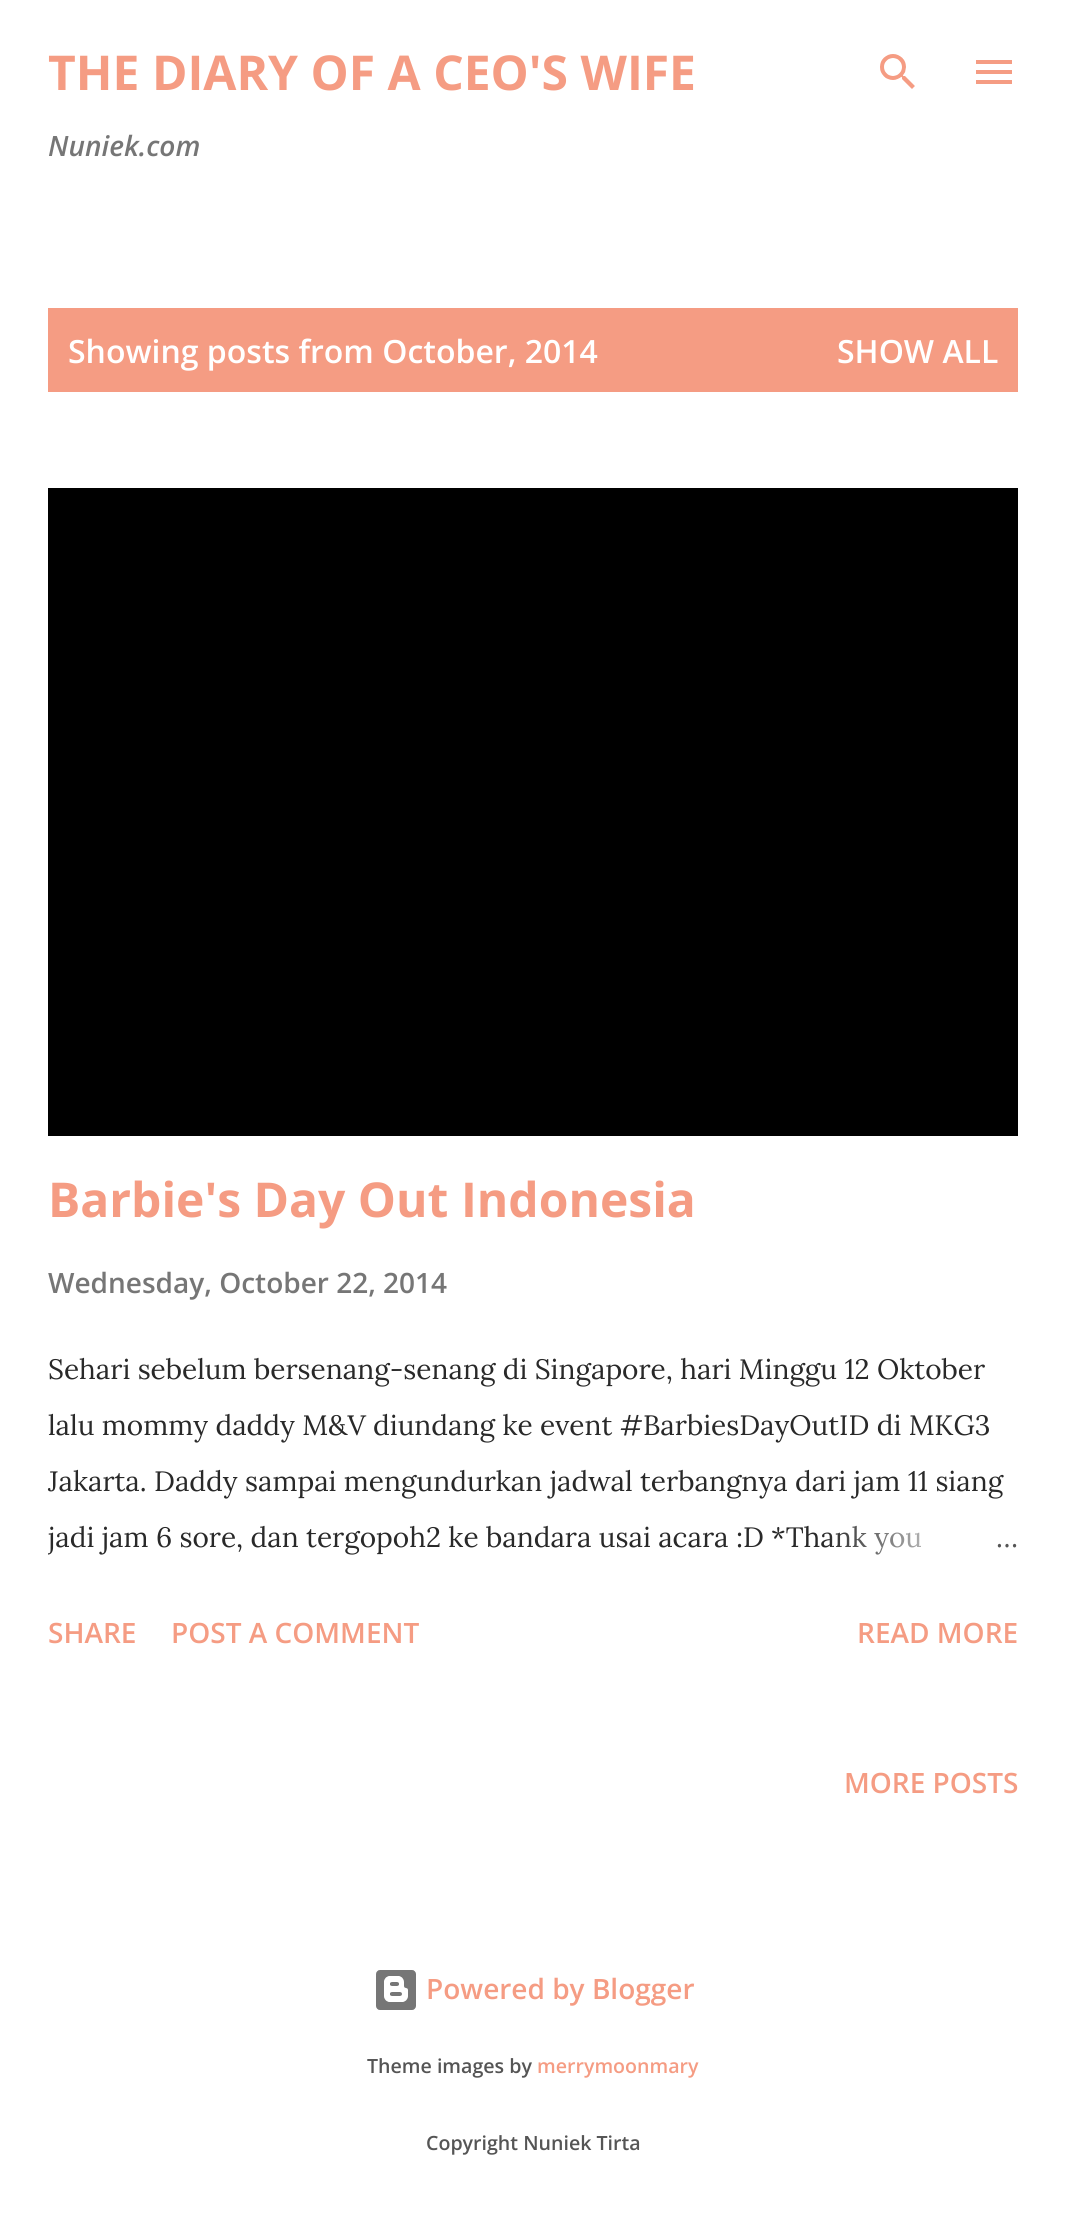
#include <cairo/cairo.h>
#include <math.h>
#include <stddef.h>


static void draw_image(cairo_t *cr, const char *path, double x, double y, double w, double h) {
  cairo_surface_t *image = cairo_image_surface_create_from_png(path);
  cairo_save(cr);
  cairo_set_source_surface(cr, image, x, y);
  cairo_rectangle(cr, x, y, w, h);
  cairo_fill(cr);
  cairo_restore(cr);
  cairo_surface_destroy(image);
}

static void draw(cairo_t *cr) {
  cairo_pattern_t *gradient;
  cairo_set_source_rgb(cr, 1, 1, 1);
  cairo_paint(cr);
  draw_image(cr, "images/1.png", 880, 54, 35, 35);
  draw_image(cr, "images/2.png", 976, 60, 36, 24);
  cairo_set_source_rgb(cr, 245 / 255.0, 156 / 255.0, 131 / 255.0);
  cairo_rectangle(cr, 48, 308, 970, 84);
  cairo_fill(cr);
  cairo_set_source_rgb(cr, 0, 0, 0);
  cairo_rectangle(cr, 48, 488, 970, 648);
  cairo_fill(cr);
  draw_image(cr, "images/3.png", 376, 1970, 40, 40);
  cairo_select_font_face(cr, "Open Sans", CAIRO_FONT_SLANT_NORMAL, CAIRO_FONT_WEIGHT_BOLD);
  cairo_set_font_size(cr, 48);
  cairo_set_source_rgb(cr, 245 / 255.0, 156 / 255.0, 131 / 255.0);
  cairo_move_to(cr, 48, 90);
  cairo_show_text(cr, "THE DIARY OF A CEO'S WIFE");
  cairo_select_font_face(cr, "Open Sans SemiBold", CAIRO_FONT_SLANT_ITALIC, CAIRO_FONT_WEIGHT_NORMAL);
  cairo_set_font_size(cr, 28);
  cairo_set_source_rgb(cr, 118 / 255.0, 118 / 255.0, 118 / 255.0);
  cairo_move_to(cr, 48, 156);
  cairo_show_text(cr, "Nuniek.com");
  cairo_select_font_face(cr, "Open Sans SemiBold", CAIRO_FONT_SLANT_NORMAL, CAIRO_FONT_WEIGHT_NORMAL);
  cairo_set_font_size(cr, 32);
  cairo_set_source_rgb(cr, 1, 1, 1);
  cairo_move_to(cr, 68, 363);
  cairo_show_text(cr, "Showing posts from October, 2014");
  cairo_move_to(cr, 837, 363);
  cairo_show_text(cr, "SHOW ALL");
  cairo_select_font_face(cr, "Open Sans", CAIRO_FONT_SLANT_NORMAL, CAIRO_FONT_WEIGHT_BOLD);
  cairo_set_font_size(cr, 48);
  cairo_set_source_rgb(cr, 245 / 255.0, 156 / 255.0, 131 / 255.0);
  cairo_move_to(cr, 48, 1217);
  cairo_show_text(cr, "Barbie's Day Out Indonesia");
  cairo_select_font_face(cr, "Open Sans SemiBold", CAIRO_FONT_SLANT_NORMAL, CAIRO_FONT_WEIGHT_NORMAL);
  cairo_set_font_size(cr, 28);
  cairo_set_source_rgb(cr, 118 / 255.0, 118 / 255.0, 118 / 255.0);
  cairo_move_to(cr, 48, 1293);
  cairo_show_text(cr, "Wednesday, October 22, 2014");
  cairo_select_font_face(cr, "Lora", CAIRO_FONT_SLANT_NORMAL, CAIRO_FONT_WEIGHT_NORMAL);
  cairo_set_source_rgb(cr, 41 / 255.0, 41 / 255.0, 41 / 255.0);
  cairo_move_to(cr, 48, 1379);
  cairo_show_text(cr, "Sehari sebelum bersenang-senang di Singapore, hari Minggu 12 Oktober");
  cairo_move_to(cr, 48, 1435);
  cairo_show_text(cr, "lalu mommy daddy M&V diundang ke event #BarbiesDayOutID di MKG3");
  cairo_move_to(cr, 48, 1491);
  cairo_show_text(cr, "Jakarta. Daddy sampai mengundurkan jadwal terbangnya dari jam 11 siang");
  cairo_save(cr);
  cairo_rectangle(cr, 48, 1342, 970, 224);
  cairo_clip(cr);
  cairo_move_to(cr, 48, 1547);
  cairo_show_text(cr, "jadi jam 6 sore, dan tergopoh2 ke bandara usai acara :D *Thank you");
  cairo_restore(cr);
  gradient = cairo_pattern_create_linear(1018, 1538, 826, 1538);
  cairo_pattern_add_color_stop_rgba(gradient, 0, 1, 1, 1, 1);
  cairo_pattern_add_color_stop_rgba(gradient, 0.2, 1, 1, 1, 1);
  cairo_pattern_add_color_stop_rgba(gradient, 1, 1, 1, 1, 0);
  cairo_set_source(cr, gradient);
  cairo_pattern_destroy(gradient);
  cairo_rectangle(cr, 829, 1525, 93, 30);
  cairo_fill(cr);
  cairo_set_source_rgb(cr, 85 / 255.0, 85 / 255.0, 85 / 255.0);
  cairo_move_to(cr, 996, 1547);
  cairo_show_text(cr, "…");
  cairo_select_font_face(cr, "Open Sans SemiBold", CAIRO_FONT_SLANT_NORMAL, CAIRO_FONT_WEIGHT_NORMAL);
  cairo_set_source_rgb(cr, 245 / 255.0, 156 / 255.0, 131 / 255.0);
  cairo_move_to(cr, 48, 1643);
  cairo_show_text(cr, "SHARE");
  cairo_move_to(cr, 171, 1643);
  cairo_show_text(cr, "POST A COMMENT");
  cairo_move_to(cr, 857, 1643);
  cairo_show_text(cr, "READ MORE");
  cairo_move_to(cr, 844, 1793);
  cairo_show_text(cr, "MORE POSTS");
  cairo_move_to(cr, 426, 1999);
  cairo_show_text(cr, "Powered by Blogger");
  cairo_set_font_size(cr, 19.6);
  cairo_set_source_rgb(cr, 85 / 255.0, 85 / 255.0, 85 / 255.0);
  cairo_move_to(cr, 367, 2073);
  cairo_show_text(cr, "Theme images by");
  cairo_set_source_rgb(cr, 245 / 255.0, 156 / 255.0, 131 / 255.0);
  cairo_move_to(cr, 537, 2073);
  cairo_show_text(cr, "merrymoonmary");
  cairo_set_source_rgb(cr, 85 / 255.0, 85 / 255.0, 85 / 255.0);
  cairo_move_to(cr, 426, 2150);
  cairo_show_text(cr, "Copyright Nuniek Tirta");
}

int main(void) {
  cairo_surface_t *surface = cairo_image_surface_create(CAIRO_FORMAT_RGB24, 1066, 2232);
  cairo_t *cr = cairo_create(surface);
  cairo_font_options_t *options = cairo_font_options_create();
  cairo_font_options_set_hint_metrics(options, CAIRO_HINT_METRICS_OFF);
  cairo_font_options_set_hint_style(options, CAIRO_HINT_STYLE_NONE);
  cairo_set_font_options(cr, options);
  cairo_set_miter_limit(cr, 4);
  draw(cr);
  cairo_surface_write_to_png(surface, "out.png");
  cairo_font_options_destroy(options);
  cairo_destroy(cr);
  cairo_surface_destroy(surface);
  return 0;
}
